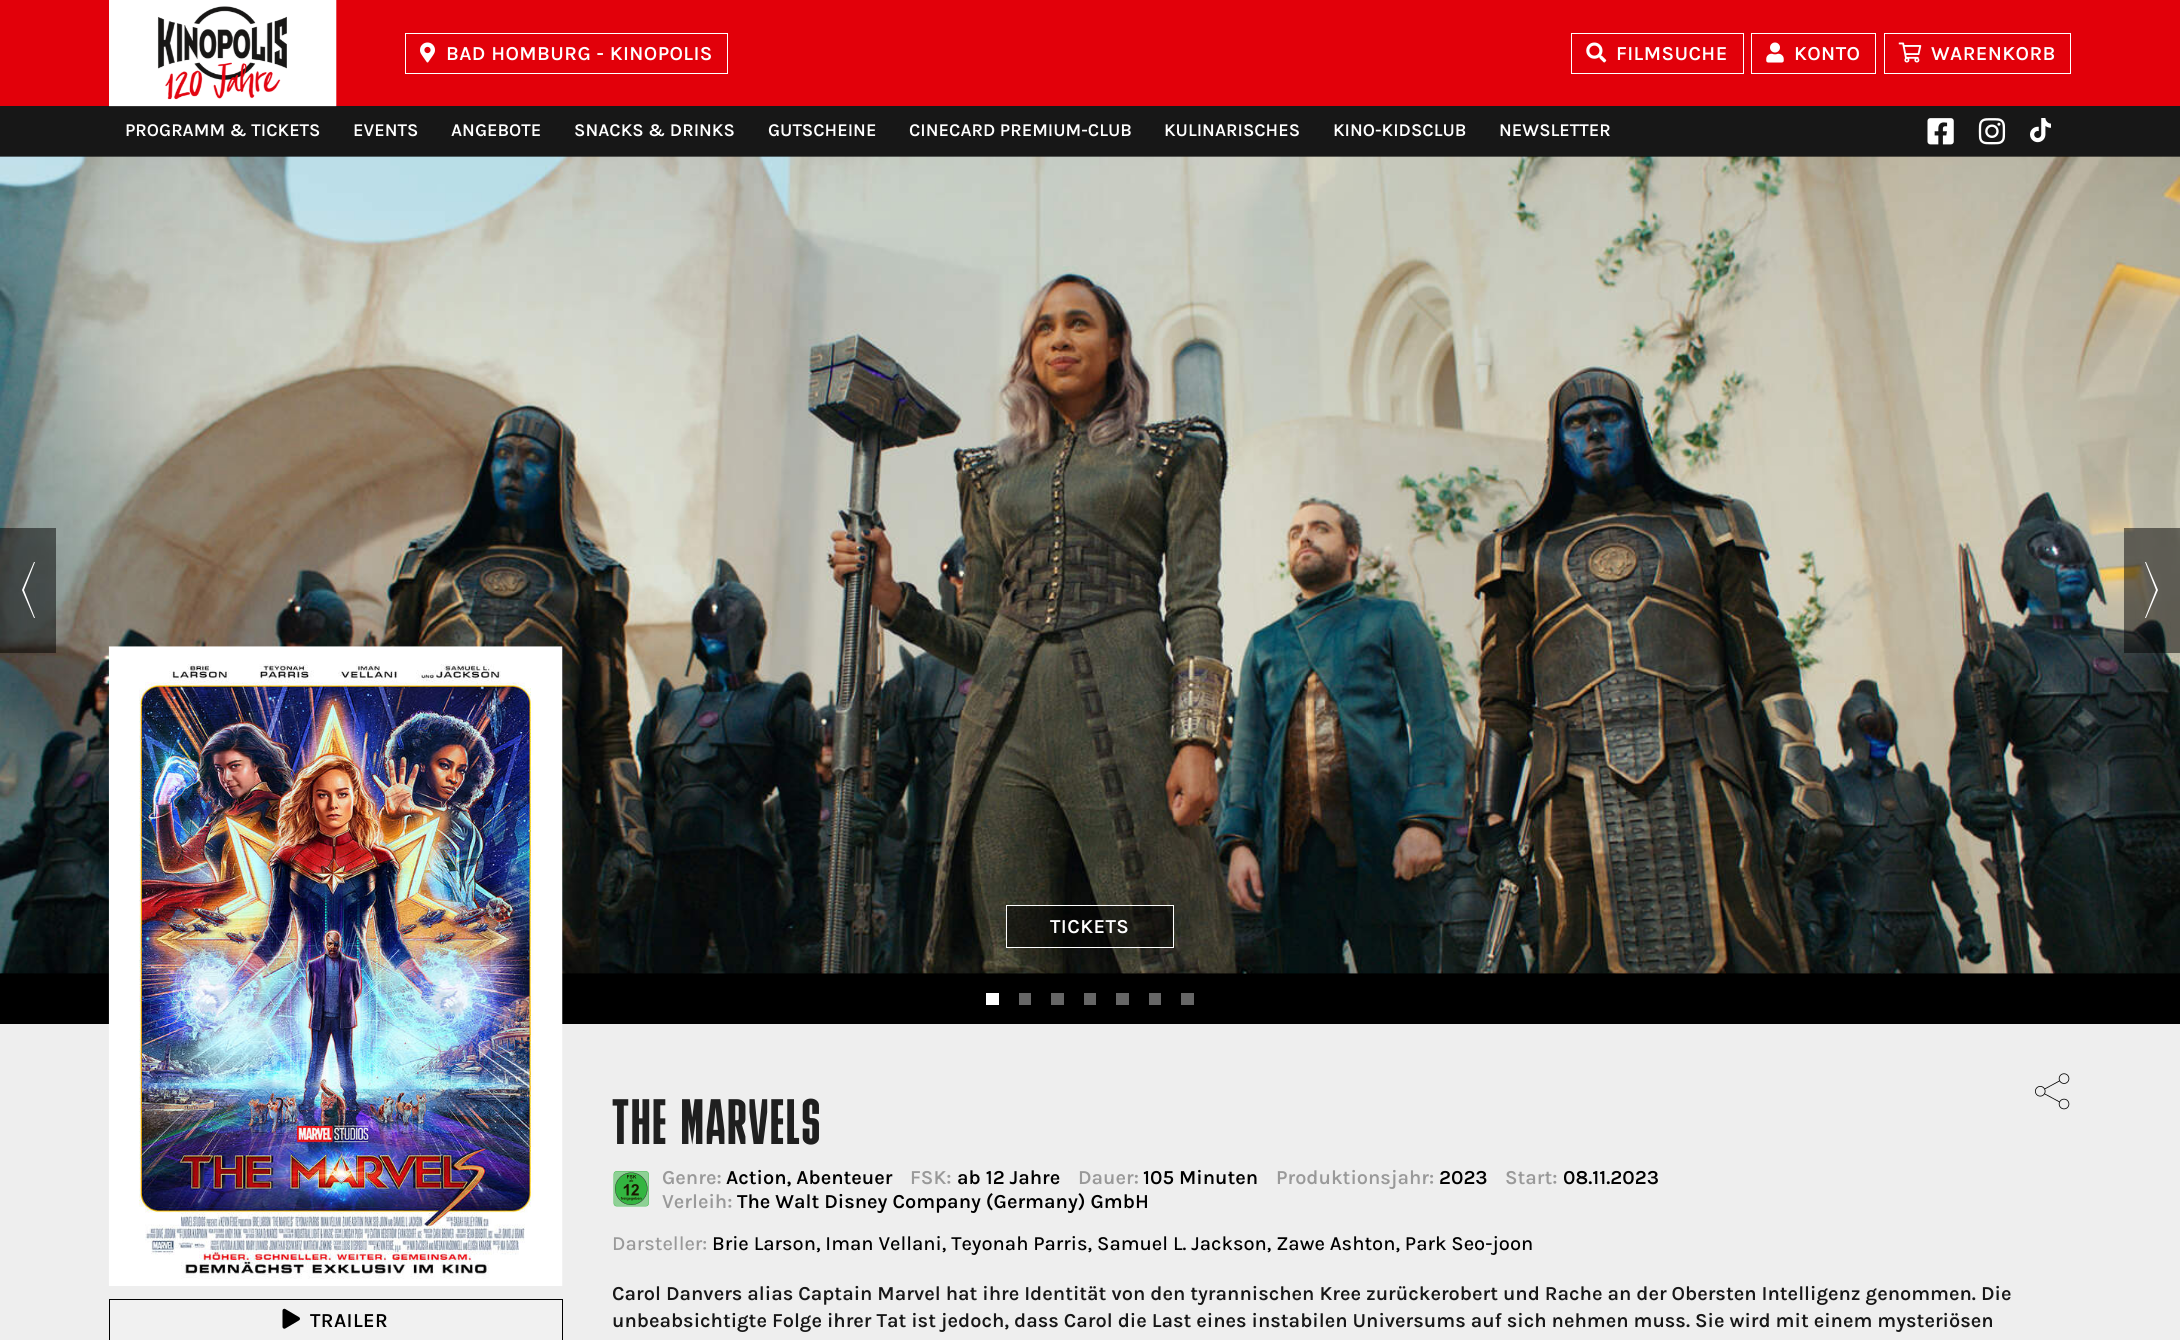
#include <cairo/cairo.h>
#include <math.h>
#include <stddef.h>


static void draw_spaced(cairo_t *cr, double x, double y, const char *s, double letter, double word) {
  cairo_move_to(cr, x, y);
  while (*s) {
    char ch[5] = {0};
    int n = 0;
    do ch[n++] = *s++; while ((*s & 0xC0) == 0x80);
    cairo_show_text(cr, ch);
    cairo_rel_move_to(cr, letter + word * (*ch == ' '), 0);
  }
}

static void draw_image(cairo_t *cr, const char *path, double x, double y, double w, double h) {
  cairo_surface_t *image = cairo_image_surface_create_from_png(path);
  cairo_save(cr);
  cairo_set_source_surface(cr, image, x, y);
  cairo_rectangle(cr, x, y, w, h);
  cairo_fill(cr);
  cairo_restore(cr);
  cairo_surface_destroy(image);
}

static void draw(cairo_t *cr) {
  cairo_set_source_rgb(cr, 238 / 255.0, 238 / 255.0, 238 / 255.0);
  cairo_paint(cr);
  cairo_set_source_rgb(cr, 226 / 255.0, 0, 10 / 255.0);
  cairo_rectangle(cr, 0, 0, 2180, 106);
  cairo_fill(cr);
  cairo_set_source_rgb(cr, 23 / 255.0, 23 / 255.0, 23 / 255.0);
  cairo_rectangle(cr, 0, 106, 2180, 50);
  cairo_fill(cr);
  draw_image(cr, "images/1.png", 109, 0, 228, 107);
  cairo_rectangle(cr, 405.5, 33.5, 322, 40);
  cairo_set_source_rgb(cr, 1, 1, 1);
  cairo_set_line_width(cr, 1);
  cairo_stroke(cr);
  draw_image(cr, "images/2.png", 420, 42, 15, 21);
  cairo_rectangle(cr, 1571.5, 33.5, 172, 40);
  cairo_stroke(cr);
  draw_image(cr, "images/3.png", 1586, 42, 21, 21);
  cairo_rectangle(cr, 1751.5, 33.5, 124, 40);
  cairo_stroke(cr);
  draw_image(cr, "images/4.png", 1766, 42, 18, 21);
  cairo_rectangle(cr, 1884.5, 33.5, 186, 40);
  cairo_stroke(cr);
  draw_image(cr, "images/5.png", 1898, 42, 24, 21);
  draw_image(cr, "images/6.png", 1927, 118, 27, 27);
  draw_image(cr, "images/7.png", 1978, 118, 28, 27);
  draw_image(cr, "images/8.png", 2030, 118, 21, 25);
  cairo_set_source_rgb(cr, 0, 0, 0);
  cairo_rectangle(cr, 0, 156, 2180, 868);
  cairo_fill(cr);
  draw_image(cr, "images/9.png", 0, 156, 2180, 818);
  cairo_set_source_rgba(cr, 0, 0, 0, 0.5);
  cairo_rectangle(cr, 0, 528, 56, 125);
  cairo_fill(cr);
  cairo_set_source_rgb(cr, 1, 1, 1);
  cairo_new_path(cr);
  cairo_move_to(cr, 22, 590);
  cairo_line_to(cr, 34, 618);
  cairo_line_to(cr, 35, 618);
  cairo_line_to(cr, 24, 590);
  cairo_line_to(cr, 35, 562);
  cairo_line_to(cr, 34, 562);
  cairo_close_path(cr);
  cairo_fill(cr);
  cairo_set_source_rgba(cr, 0, 0, 0, 0.5);
  cairo_rectangle(cr, 2124, 528, 56, 125);
  cairo_fill(cr);
  cairo_set_source_rgb(cr, 1, 1, 1);
  cairo_new_path(cr);
  cairo_move_to(cr, 2158, 590);
  cairo_line_to(cr, 2146, 562);
  cairo_line_to(cr, 2145, 562);
  cairo_line_to(cr, 2156, 590);
  cairo_line_to(cr, 2145, 618);
  cairo_line_to(cr, 2146, 618);
  cairo_close_path(cr);
  cairo_fill(cr);
  cairo_rectangle(cr, 986, 993, 13, 12);
  cairo_fill(cr);
  cairo_set_source_rgb(cr, 102 / 255.0, 102 / 255.0, 102 / 255.0);
  cairo_rectangle(cr, 1019, 993, 12, 12);
  cairo_fill(cr);
  cairo_rectangle(cr, 1051, 993, 13, 12);
  cairo_fill(cr);
  cairo_rectangle(cr, 1084, 993, 12, 12);
  cairo_fill(cr);
  cairo_rectangle(cr, 1116, 993, 13, 12);
  cairo_fill(cr);
  cairo_rectangle(cr, 1149, 993, 12, 12);
  cairo_fill(cr);
  cairo_rectangle(cr, 1181, 993, 13, 12);
  cairo_fill(cr);
  cairo_set_source_rgba(cr, 0, 0, 0, 0.5);
  cairo_rectangle(cr, 1006.5, 905.5, 167, 42);
  cairo_fill_preserve(cr);
  cairo_set_source_rgb(cr, 1, 1, 1);
  cairo_stroke(cr);
  draw_image(cr, "images/10.png", 108, 646, 455, 640);
  cairo_set_source_rgb(cr, 241 / 255.0, 241 / 255.0, 241 / 255.0);
  cairo_rectangle(cr, 109.5, 1299.5, 453, 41);
  cairo_fill_preserve(cr);
  cairo_set_source_rgb(cr, 0, 0, 0);
  cairo_stroke(cr);
  draw_image(cr, "images/11.png", 282, 1308, 18, 21);
  draw_image(cr, "images/12.png", 2035, 1073, 35, 37);
  draw_image(cr, "images/13.png", 613, 1171, 36, 36);
  cairo_select_font_face(cr, "Karla SemiBold", CAIRO_FONT_SLANT_NORMAL, CAIRO_FONT_WEIGHT_NORMAL);
  cairo_set_font_size(cr, 20);
  cairo_set_source_rgb(cr, 1, 1, 1);
  draw_spaced(cr, 446, 60, "BAD HOMBURG - KINOPOLIS", 0.4, 0);
  draw_spaced(cr, 1616, 60, "FILMSUCHE", 0.4, 0);
  draw_spaced(cr, 1794, 60, "KONTO", 0.4, 0);
  draw_spaced(cr, 1931, 60, "WARENKORB", 0.4, 0);
  cairo_set_font_size(cr, 18.1);
  cairo_move_to(cr, 125, 136);
  cairo_show_text(cr, "PROGRAMM & TICKETS");
  cairo_move_to(cr, 353, 136);
  cairo_show_text(cr, "EVENTS");
  cairo_move_to(cr, 451, 136);
  cairo_show_text(cr, "ANGEBOTE");
  cairo_move_to(cr, 574, 136);
  cairo_show_text(cr, "SNACKS & DRINKS");
  cairo_move_to(cr, 768, 136);
  cairo_show_text(cr, "GUTSCHEINE");
  cairo_move_to(cr, 909, 136);
  cairo_show_text(cr, "CINECARD PREMIUM-CLUB");
  cairo_move_to(cr, 1164, 136);
  cairo_show_text(cr, "KULINARISCHES");
  cairo_move_to(cr, 1333, 136);
  cairo_show_text(cr, "KINO-KIDSCLUB");
  cairo_move_to(cr, 1499, 136);
  cairo_show_text(cr, "NEWSLETTER");
  cairo_set_font_size(cr, 20);
  draw_spaced(cr, 1050, 933, "TICKETS", 0.4, 0);
  cairo_set_source_rgb(cr, 0, 0, 0);
  draw_spaced(cr, 310, 1327, "TRAILER", 0.4, 0);
  cairo_select_font_face(cr, "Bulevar", CAIRO_FONT_SLANT_NORMAL, CAIRO_FONT_WEIGHT_NORMAL);
  cairo_set_font_size(cr, 64);
  cairo_set_source_rgb(cr, 31 / 255.0, 31 / 255.0, 31 / 255.0);
  draw_spaced(cr, 612, 1144, "THE MARVELS", 2, 0);
  cairo_select_font_face(cr, "Karla SemiBold", CAIRO_FONT_SLANT_NORMAL, CAIRO_FONT_WEIGHT_NORMAL);
  cairo_set_font_size(cr, 20);
  cairo_set_source_rgb(cr, 153 / 255.0, 153 / 255.0, 153 / 255.0);
  cairo_move_to(cr, 662, 1184);
  cairo_show_text(cr, "Genre:");
  cairo_set_source_rgb(cr, 0, 0, 0);
  cairo_move_to(cr, 726, 1184);
  cairo_show_text(cr, "Action, Abenteuer");
  cairo_set_source_rgb(cr, 153 / 255.0, 153 / 255.0, 153 / 255.0);
  cairo_move_to(cr, 910, 1184);
  cairo_show_text(cr, "FSK:");
  cairo_set_source_rgb(cr, 0, 0, 0);
  cairo_move_to(cr, 957, 1184);
  cairo_show_text(cr, "ab 12 Jahre");
  cairo_set_source_rgb(cr, 153 / 255.0, 153 / 255.0, 153 / 255.0);
  cairo_move_to(cr, 1078, 1184);
  cairo_show_text(cr, "Dauer:");
  cairo_set_source_rgb(cr, 0, 0, 0);
  cairo_move_to(cr, 1143, 1184);
  cairo_show_text(cr, "105 Minuten");
  cairo_set_source_rgb(cr, 153 / 255.0, 153 / 255.0, 153 / 255.0);
  cairo_move_to(cr, 1276, 1184);
  cairo_show_text(cr, "Produktionsjahr:");
  cairo_set_source_rgb(cr, 0, 0, 0);
  cairo_move_to(cr, 1439, 1184);
  cairo_show_text(cr, "2023");
  cairo_set_source_rgb(cr, 153 / 255.0, 153 / 255.0, 153 / 255.0);
  cairo_move_to(cr, 1505, 1184);
  cairo_show_text(cr, "Start:");
  cairo_set_source_rgb(cr, 0, 0, 0);
  cairo_move_to(cr, 1563, 1184);
  cairo_show_text(cr, "08.11.2023");
  cairo_set_source_rgb(cr, 153 / 255.0, 153 / 255.0, 153 / 255.0);
  cairo_move_to(cr, 662, 1208);
  cairo_show_text(cr, "Verleih:");
  cairo_set_source_rgb(cr, 0, 0, 0);
  cairo_move_to(cr, 737, 1208);
  cairo_show_text(cr, "The Walt Disney Company (Germany) GmbH");
  cairo_select_font_face(cr, "Karla Medium", CAIRO_FONT_SLANT_NORMAL, CAIRO_FONT_WEIGHT_NORMAL);
  cairo_set_source_rgb(cr, 153 / 255.0, 153 / 255.0, 153 / 255.0);
  cairo_move_to(cr, 612, 1250);
  cairo_show_text(cr, "Darsteller:");
  cairo_set_source_rgb(cr, 0, 0, 0);
  cairo_move_to(cr, 712, 1250);
  cairo_show_text(cr, "Brie Larson, Iman Vellani, Teyonah Parris, Samuel L. Jackson, Zawe Ashton, Park Seo-joon");
  cairo_select_font_face(cr, "Karla SemiBold", CAIRO_FONT_SLANT_NORMAL, CAIRO_FONT_WEIGHT_NORMAL);
  cairo_set_source_rgb(cr, 23 / 255.0, 23 / 255.0, 23 / 255.0);
  cairo_move_to(cr, 612, 1300);
  cairo_show_text(cr, "Carol Danvers alias Captain Marvel hat ihre Identität von den tyrannischen Kree zurückerobert und Rache an der Obersten Intelligenz genommen. Die");
  cairo_move_to(cr, 612, 1327);
  cairo_show_text(cr, "unbeabsichtigte Folge ihrer Tat ist jedoch, dass Carol die Last eines instabilen Universums auf sich nehmen muss. Sie wird mit einem mysteriösen");
}

int main(void) {
  cairo_surface_t *surface = cairo_image_surface_create(CAIRO_FORMAT_RGB24, 2180, 1340);
  cairo_t *cr = cairo_create(surface);
  cairo_font_options_t *options = cairo_font_options_create();
  cairo_font_options_set_hint_metrics(options, CAIRO_HINT_METRICS_OFF);
  cairo_font_options_set_hint_style(options, CAIRO_HINT_STYLE_NONE);
  cairo_set_font_options(cr, options);
  cairo_set_miter_limit(cr, 4);
  draw(cr);
  cairo_surface_write_to_png(surface, "out.png");
  cairo_font_options_destroy(options);
  cairo_destroy(cr);
  cairo_surface_destroy(surface);
  return 0;
}
